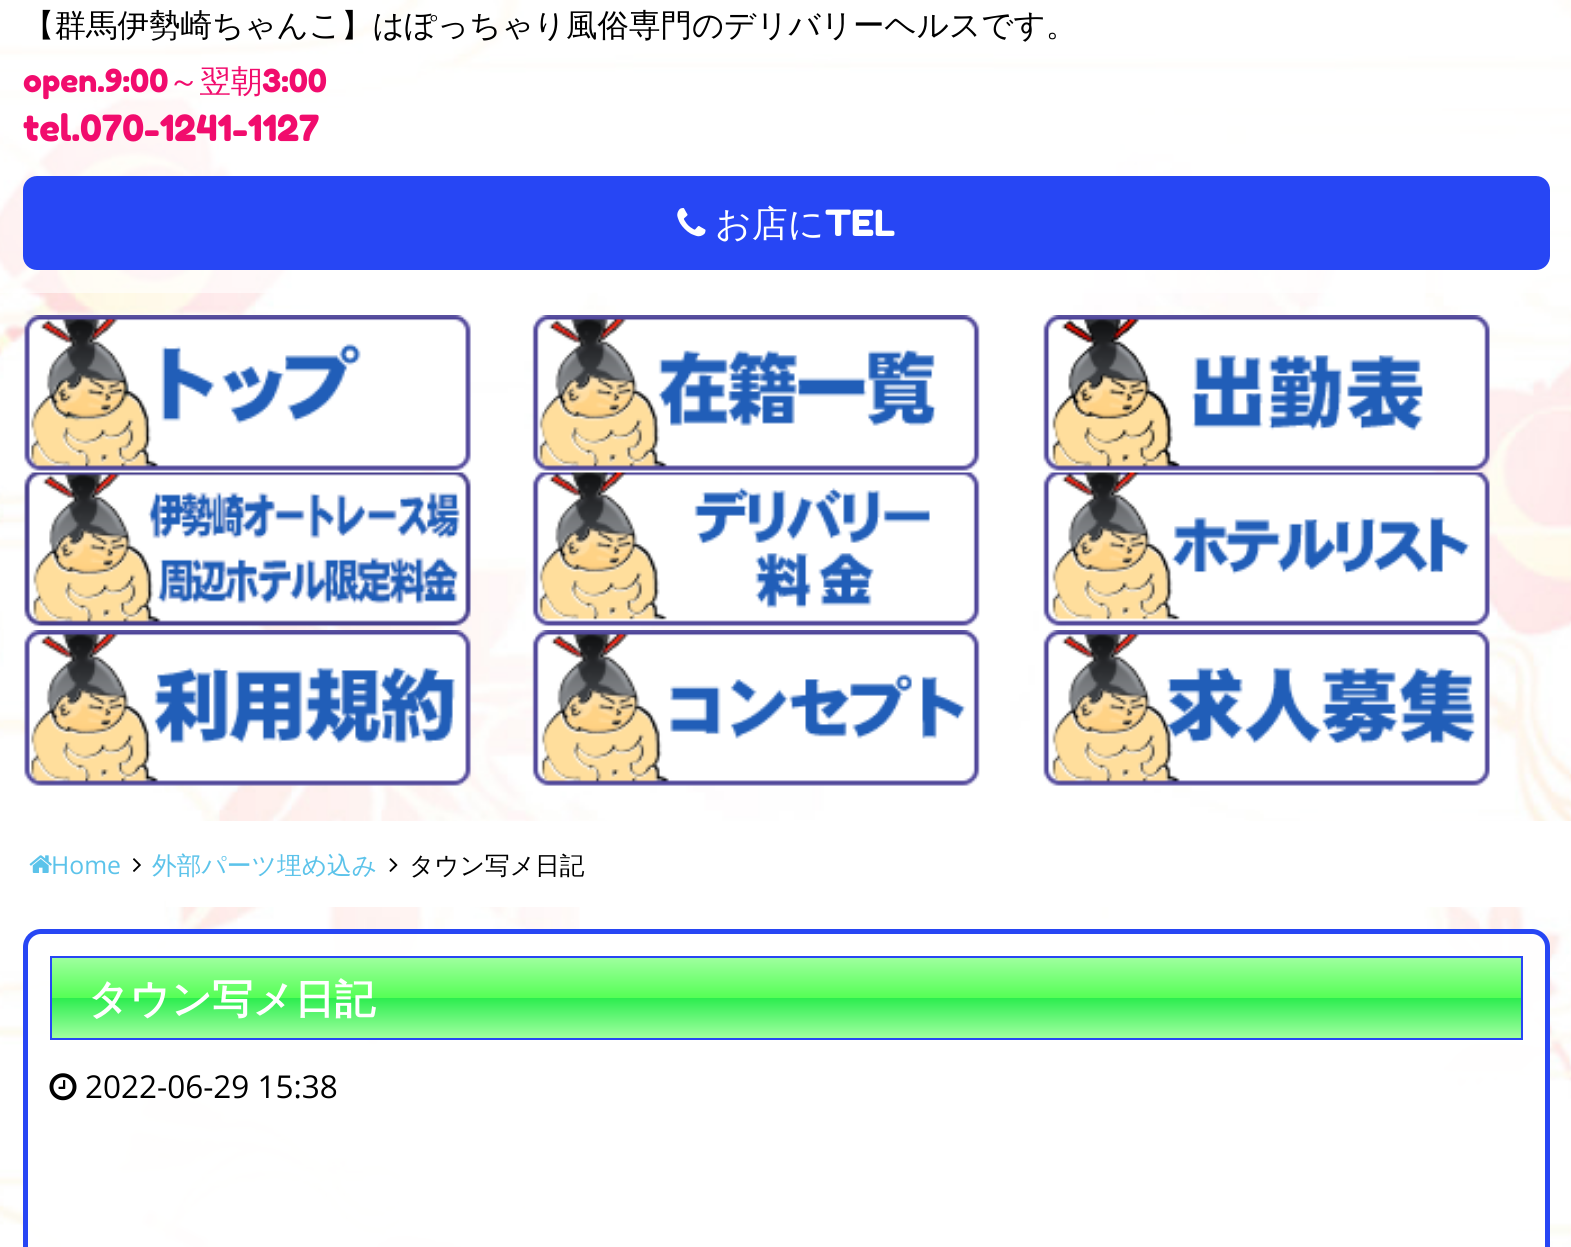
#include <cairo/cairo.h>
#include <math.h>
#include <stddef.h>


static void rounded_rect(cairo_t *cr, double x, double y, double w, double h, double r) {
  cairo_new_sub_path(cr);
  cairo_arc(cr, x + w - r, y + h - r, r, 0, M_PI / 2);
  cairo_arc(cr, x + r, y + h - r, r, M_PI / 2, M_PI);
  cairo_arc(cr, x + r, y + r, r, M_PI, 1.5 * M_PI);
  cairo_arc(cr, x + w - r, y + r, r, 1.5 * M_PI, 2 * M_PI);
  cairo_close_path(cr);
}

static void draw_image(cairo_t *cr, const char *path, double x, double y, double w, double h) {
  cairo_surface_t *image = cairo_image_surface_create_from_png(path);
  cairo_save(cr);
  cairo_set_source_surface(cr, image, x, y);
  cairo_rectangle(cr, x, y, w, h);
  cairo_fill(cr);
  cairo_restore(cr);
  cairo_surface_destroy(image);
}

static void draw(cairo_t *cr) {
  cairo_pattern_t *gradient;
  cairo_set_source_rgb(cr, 1, 1, 1);
  cairo_paint(cr);
  draw_image(cr, "images/1.png", 0, 0, 1571, 1247);
  cairo_set_source_rgba(cr, 1, 1, 1, 0.6);
  cairo_rectangle(cr, 0, 0, 1571, 293);
  cairo_fill(cr);
  cairo_set_source_rgb(cr, 39 / 255.0, 70 / 255.0, 244 / 255.0);
  rounded_rect(cr, 23, 176, 1527, 94, 14);
  cairo_fill(cr);
  draw_image(cr, "images/2.png", 677, 208, 29, 29);
  draw_image(cr, "images/3.png", 24, 315, 447, 156);
  draw_image(cr, "images/4.png", 532, 315, 448, 156);
  draw_image(cr, "images/5.png", 1043, 315, 447, 156);
  draw_image(cr, "images/6.png", 24, 472, 447, 155);
  draw_image(cr, "images/7.png", 532, 472, 448, 155);
  draw_image(cr, "images/8.png", 1043, 472, 447, 155);
  draw_image(cr, "images/9.png", 24, 630, 447, 156);
  draw_image(cr, "images/10.png", 532, 630, 448, 156);
  draw_image(cr, "images/11.png", 1043, 630, 447, 156);
  cairo_set_source_rgb(cr, 1, 1, 1);
  cairo_rectangle(cr, 166, 821, 1405, 86);
  cairo_fill(cr);
  draw_image(cr, "images/12.png", 29, 855, 23, 18);
  draw_image(cr, "images/13.png", 133, 858, 8, 14);
  draw_image(cr, "images/14.png", 389, 858, 9, 14);
  cairo_set_source_rgba(cr, 1, 1, 1, 0.95);
  rounded_rect(cr, 25.5, 931.5, 1522, 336, 15.5);
  cairo_fill_preserve(cr);
  cairo_set_source_rgb(cr, 39 / 255.0, 70 / 255.0, 244 / 255.0);
  cairo_set_line_width(cr, 5);
  cairo_stroke(cr);
  gradient = cairo_pattern_create_linear(786, 880, 786, 959);
  cairo_pattern_add_color_stop_rgba(gradient, 0, 158 / 255.0, 1, 158 / 255.0, 1);
  cairo_pattern_add_color_stop_rgba(gradient, 0.5, 86 / 255.0, 1, 86 / 255.0, 1);
  cairo_pattern_add_color_stop_rgba(gradient, 0.51, 45 / 255.0, 237 / 255.0, 80 / 255.0, 1);
  cairo_pattern_add_color_stop_rgba(gradient, 1, 158 / 255.0, 1, 158 / 255.0, 1);
  cairo_set_source(cr, gradient);
  cairo_pattern_destroy(gradient);
  cairo_rectangle(cr, 50, 958, 1473, 1);
  cairo_fill(cr);
  gradient = cairo_pattern_create_linear(786, 958, 786, 1037);
  cairo_pattern_add_color_stop_rgba(gradient, 0, 158 / 255.0, 1, 158 / 255.0, 1);
  cairo_pattern_add_color_stop_rgba(gradient, 0.5, 86 / 255.0, 1, 86 / 255.0, 1);
  cairo_pattern_add_color_stop_rgba(gradient, 0.51, 45 / 255.0, 237 / 255.0, 80 / 255.0, 1);
  cairo_pattern_add_color_stop_rgba(gradient, 1, 158 / 255.0, 1, 158 / 255.0, 1);
  cairo_set_source(cr, gradient);
  cairo_pattern_destroy(gradient);
  cairo_rectangle(cr, 52, 959, 1469, 78);
  cairo_fill(cr);
  gradient = cairo_pattern_create_linear(786, 1037, 786, 1116);
  cairo_pattern_add_color_stop_rgba(gradient, 0, 158 / 255.0, 1, 158 / 255.0, 1);
  cairo_pattern_add_color_stop_rgba(gradient, 0.5, 86 / 255.0, 1, 86 / 255.0, 1);
  cairo_pattern_add_color_stop_rgba(gradient, 0.51, 45 / 255.0, 237 / 255.0, 80 / 255.0, 1);
  cairo_pattern_add_color_stop_rgba(gradient, 1, 158 / 255.0, 1, 158 / 255.0, 1);
  cairo_set_source(cr, gradient);
  cairo_pattern_destroy(gradient);
  cairo_rectangle(cr, 50, 1037, 1473, 1);
  cairo_fill(cr);
  cairo_rectangle(cr, 51, 957, 1471, 82);
  cairo_set_source_rgb(cr, 39 / 255.0, 70 / 255.0, 244 / 255.0);
  cairo_set_line_width(cr, 2);
  cairo_stroke(cr);
  draw_image(cr, "images/15.png", 49, 1073, 28, 28);
  cairo_select_font_face(cr, "WenQuanYi Zen Hei Medium", CAIRO_FONT_SLANT_NORMAL, CAIRO_FONT_WEIGHT_NORMAL);
  cairo_set_font_size(cr, 31.5);
  cairo_set_source_rgb(cr, 0, 0, 0);
  cairo_move_to(cr, 23, 36);
  cairo_show_text(cr, "【群馬伊勢崎ちゃんこ】はぽっちゃり風俗専門のデリバリーヘルスです。");
  cairo_select_font_face(cr, "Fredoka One", CAIRO_FONT_SLANT_NORMAL, CAIRO_FONT_WEIGHT_NORMAL);
  cairo_set_source_rgb(cr, 241 / 255.0, 12 / 255.0, 109 / 255.0);
  cairo_move_to(cr, 23, 92);
  cairo_show_text(cr, "open.9:00");
  cairo_select_font_face(cr, "WenQuanYi Zen Hei Medium", CAIRO_FONT_SLANT_NORMAL, CAIRO_FONT_WEIGHT_NORMAL);
  cairo_move_to(cr, 168, 92);
  cairo_show_text(cr, "～翌朝");
  cairo_select_font_face(cr, "Fredoka One", CAIRO_FONT_SLANT_NORMAL, CAIRO_FONT_WEIGHT_NORMAL);
  cairo_move_to(cr, 262, 92);
  cairo_show_text(cr, "3:00");
  cairo_set_font_size(cr, 36);
  cairo_move_to(cr, 23, 141);
  cairo_show_text(cr, "tel.070-1241-1127");
  cairo_select_font_face(cr, "WenQuanYi Zen Hei Medium", CAIRO_FONT_SLANT_NORMAL, CAIRO_FONT_WEIGHT_NORMAL);
  cairo_set_source_rgb(cr, 1, 1, 1);
  cairo_move_to(cr, 715, 236);
  cairo_show_text(cr, "お店に");
  cairo_select_font_face(cr, "Fredoka One", CAIRO_FONT_SLANT_NORMAL, CAIRO_FONT_WEIGHT_NORMAL);
  cairo_move_to(cr, 825, 236);
  cairo_show_text(cr, "TEL");
  cairo_select_font_face(cr, "Open Sans", CAIRO_FONT_SLANT_NORMAL, CAIRO_FONT_WEIGHT_NORMAL);
  cairo_set_font_size(cr, 24.75);
  cairo_set_source_rgb(cr, 92 / 255.0, 195 / 255.0, 234 / 255.0);
  cairo_move_to(cr, 51, 874);
  cairo_show_text(cr, "Home");
  cairo_select_font_face(cr, "WenQuanYi Zen Hei Medium", CAIRO_FONT_SLANT_NORMAL, CAIRO_FONT_WEIGHT_NORMAL);
  cairo_move_to(cr, 152, 874);
  cairo_show_text(cr, "外部パーツ埋め込み");
  cairo_set_source_rgb(cr, 0, 0, 0);
  cairo_move_to(cr, 409, 874);
  cairo_show_text(cr, "タウン写メ日記");
  cairo_select_font_face(cr, "WenQuanYi Zen Hei", CAIRO_FONT_SLANT_NORMAL, CAIRO_FONT_WEIGHT_BOLD);
  cairo_set_font_size(cr, 40.5);
  cairo_set_source_rgb(cr, 1, 1, 1);
  cairo_move_to(cr, 88, 1013);
  cairo_show_text(cr, "タウン写メ日記");
  cairo_select_font_face(cr, "Open Sans", CAIRO_FONT_SLANT_NORMAL, CAIRO_FONT_WEIGHT_NORMAL);
  cairo_set_font_size(cr, 31.5);
  cairo_set_source_rgb(cr, 0, 0, 0);
  cairo_move_to(cr, 85, 1098);
  cairo_show_text(cr, "2022-06-29 15:38");
}

int main(void) {
  cairo_surface_t *surface = cairo_image_surface_create(CAIRO_FORMAT_RGB24, 1571, 1247);
  cairo_t *cr = cairo_create(surface);
  cairo_font_options_t *options = cairo_font_options_create();
  cairo_font_options_set_hint_metrics(options, CAIRO_HINT_METRICS_OFF);
  cairo_font_options_set_hint_style(options, CAIRO_HINT_STYLE_NONE);
  cairo_set_font_options(cr, options);
  cairo_set_miter_limit(cr, 4);
  draw(cr);
  cairo_surface_write_to_png(surface, "out.png");
  cairo_font_options_destroy(options);
  cairo_destroy(cr);
  cairo_surface_destroy(surface);
  return 0;
}
